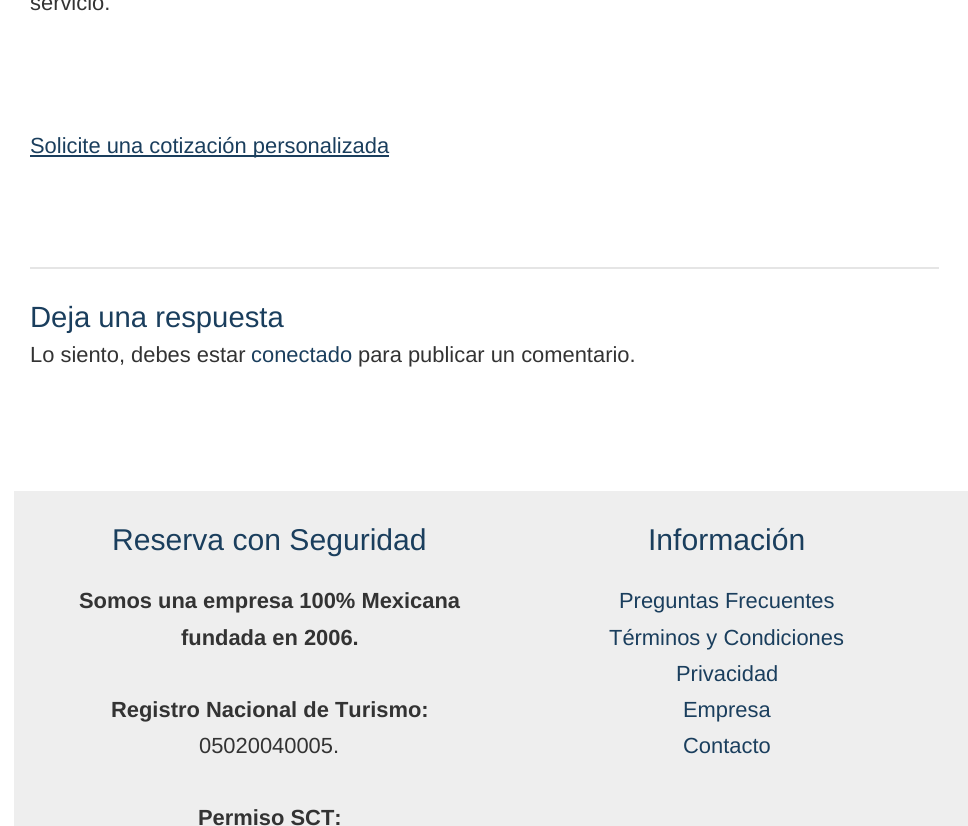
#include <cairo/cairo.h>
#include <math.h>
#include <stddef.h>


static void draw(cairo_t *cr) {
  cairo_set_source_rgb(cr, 1, 1, 1);
  cairo_paint(cr);
  cairo_set_source_rgb(cr, 26 / 255.0, 62 / 255.0, 93 / 255.0);
  cairo_rectangle(cr, 30, 155, 359, 2);
  cairo_fill(cr);
  cairo_set_source_rgb(cr, 229 / 255.0, 229 / 255.0, 229 / 255.0);
  cairo_rectangle(cr, 30, 267, 909, 2);
  cairo_fill(cr);
  cairo_set_source_rgb(cr, 238 / 255.0, 238 / 255.0, 238 / 255.0);
  cairo_rectangle(cr, 14, 491, 954, 335);
  cairo_fill(cr);
  cairo_select_font_face(cr, "Liberation Sans", CAIRO_FONT_SLANT_NORMAL, CAIRO_FONT_WEIGHT_NORMAL);
  cairo_set_font_size(cr, 21.9);
  cairo_set_source_rgb(cr, 51 / 255.0, 51 / 255.0, 51 / 255.0);
  cairo_move_to(cr, 30, 10);
  cairo_show_text(cr, "servicio.");
  cairo_set_source_rgb(cr, 26 / 255.0, 62 / 255.0, 93 / 255.0);
  cairo_move_to(cr, 30, 153);
  cairo_show_text(cr, "Solicite una cotización personalizada");
  cairo_set_font_size(cr, 29.25);
  cairo_move_to(cr, 30, 327);
  cairo_show_text(cr, "Deja una respuesta");
  cairo_set_font_size(cr, 21.9);
  cairo_set_source_rgb(cr, 51 / 255.0, 51 / 255.0, 51 / 255.0);
  cairo_move_to(cr, 30, 362);
  cairo_show_text(cr, "Lo siento, debes estar");
  cairo_set_source_rgb(cr, 26 / 255.0, 62 / 255.0, 93 / 255.0);
  cairo_move_to(cr, 251, 362);
  cairo_show_text(cr, "conectado");
  cairo_set_source_rgb(cr, 51 / 255.0, 51 / 255.0, 51 / 255.0);
  cairo_move_to(cr, 358, 362);
  cairo_show_text(cr, "para publicar un comentario.");
  cairo_set_font_size(cr, 30.1);
  cairo_set_source_rgb(cr, 26 / 255.0, 62 / 255.0, 93 / 255.0);
  cairo_move_to(cr, 112, 550);
  cairo_show_text(cr, "Reserva con Seguridad");
  cairo_select_font_face(cr, "Liberation Sans", CAIRO_FONT_SLANT_NORMAL, CAIRO_FONT_WEIGHT_BOLD);
  cairo_set_font_size(cr, 21.9);
  cairo_set_source_rgb(cr, 51 / 255.0, 51 / 255.0, 51 / 255.0);
  cairo_move_to(cr, 79, 608);
  cairo_show_text(cr, "Somos una empresa 100% Mexicana");
  cairo_move_to(cr, 181, 645);
  cairo_show_text(cr, "fundada en 2006.");
  cairo_move_to(cr, 111, 717);
  cairo_show_text(cr, "Registro Nacional de Turismo:");
  cairo_select_font_face(cr, "Liberation Sans", CAIRO_FONT_SLANT_NORMAL, CAIRO_FONT_WEIGHT_NORMAL);
  cairo_move_to(cr, 199, 753);
  cairo_show_text(cr, "05020040005.");
  cairo_select_font_face(cr, "Liberation Sans", CAIRO_FONT_SLANT_NORMAL, CAIRO_FONT_WEIGHT_BOLD);
  cairo_move_to(cr, 198, 825);
  cairo_show_text(cr, "Permiso SCT:");
  cairo_select_font_face(cr, "Liberation Sans", CAIRO_FONT_SLANT_NORMAL, CAIRO_FONT_WEIGHT_NORMAL);
  cairo_set_font_size(cr, 30.1);
  cairo_set_source_rgb(cr, 26 / 255.0, 62 / 255.0, 93 / 255.0);
  cairo_move_to(cr, 648, 550);
  cairo_show_text(cr, "Información");
  cairo_set_font_size(cr, 21.9);
  cairo_move_to(cr, 619, 608);
  cairo_show_text(cr, "Preguntas Frecuentes");
  cairo_move_to(cr, 609, 645);
  cairo_show_text(cr, "Términos y Condiciones");
  cairo_move_to(cr, 676, 681);
  cairo_show_text(cr, "Privacidad");
  cairo_move_to(cr, 683, 717);
  cairo_show_text(cr, "Empresa");
  cairo_move_to(cr, 683, 753);
  cairo_show_text(cr, "Contacto");
}

int main(void) {
  cairo_surface_t *surface = cairo_image_surface_create(CAIRO_FORMAT_RGB24, 968, 826);
  cairo_t *cr = cairo_create(surface);
  cairo_font_options_t *options = cairo_font_options_create();
  cairo_font_options_set_hint_metrics(options, CAIRO_HINT_METRICS_OFF);
  cairo_font_options_set_hint_style(options, CAIRO_HINT_STYLE_NONE);
  cairo_set_font_options(cr, options);
  cairo_set_miter_limit(cr, 4);
  draw(cr);
  cairo_surface_write_to_png(surface, "out.png");
  cairo_font_options_destroy(options);
  cairo_destroy(cr);
  cairo_surface_destroy(surface);
  return 0;
}
